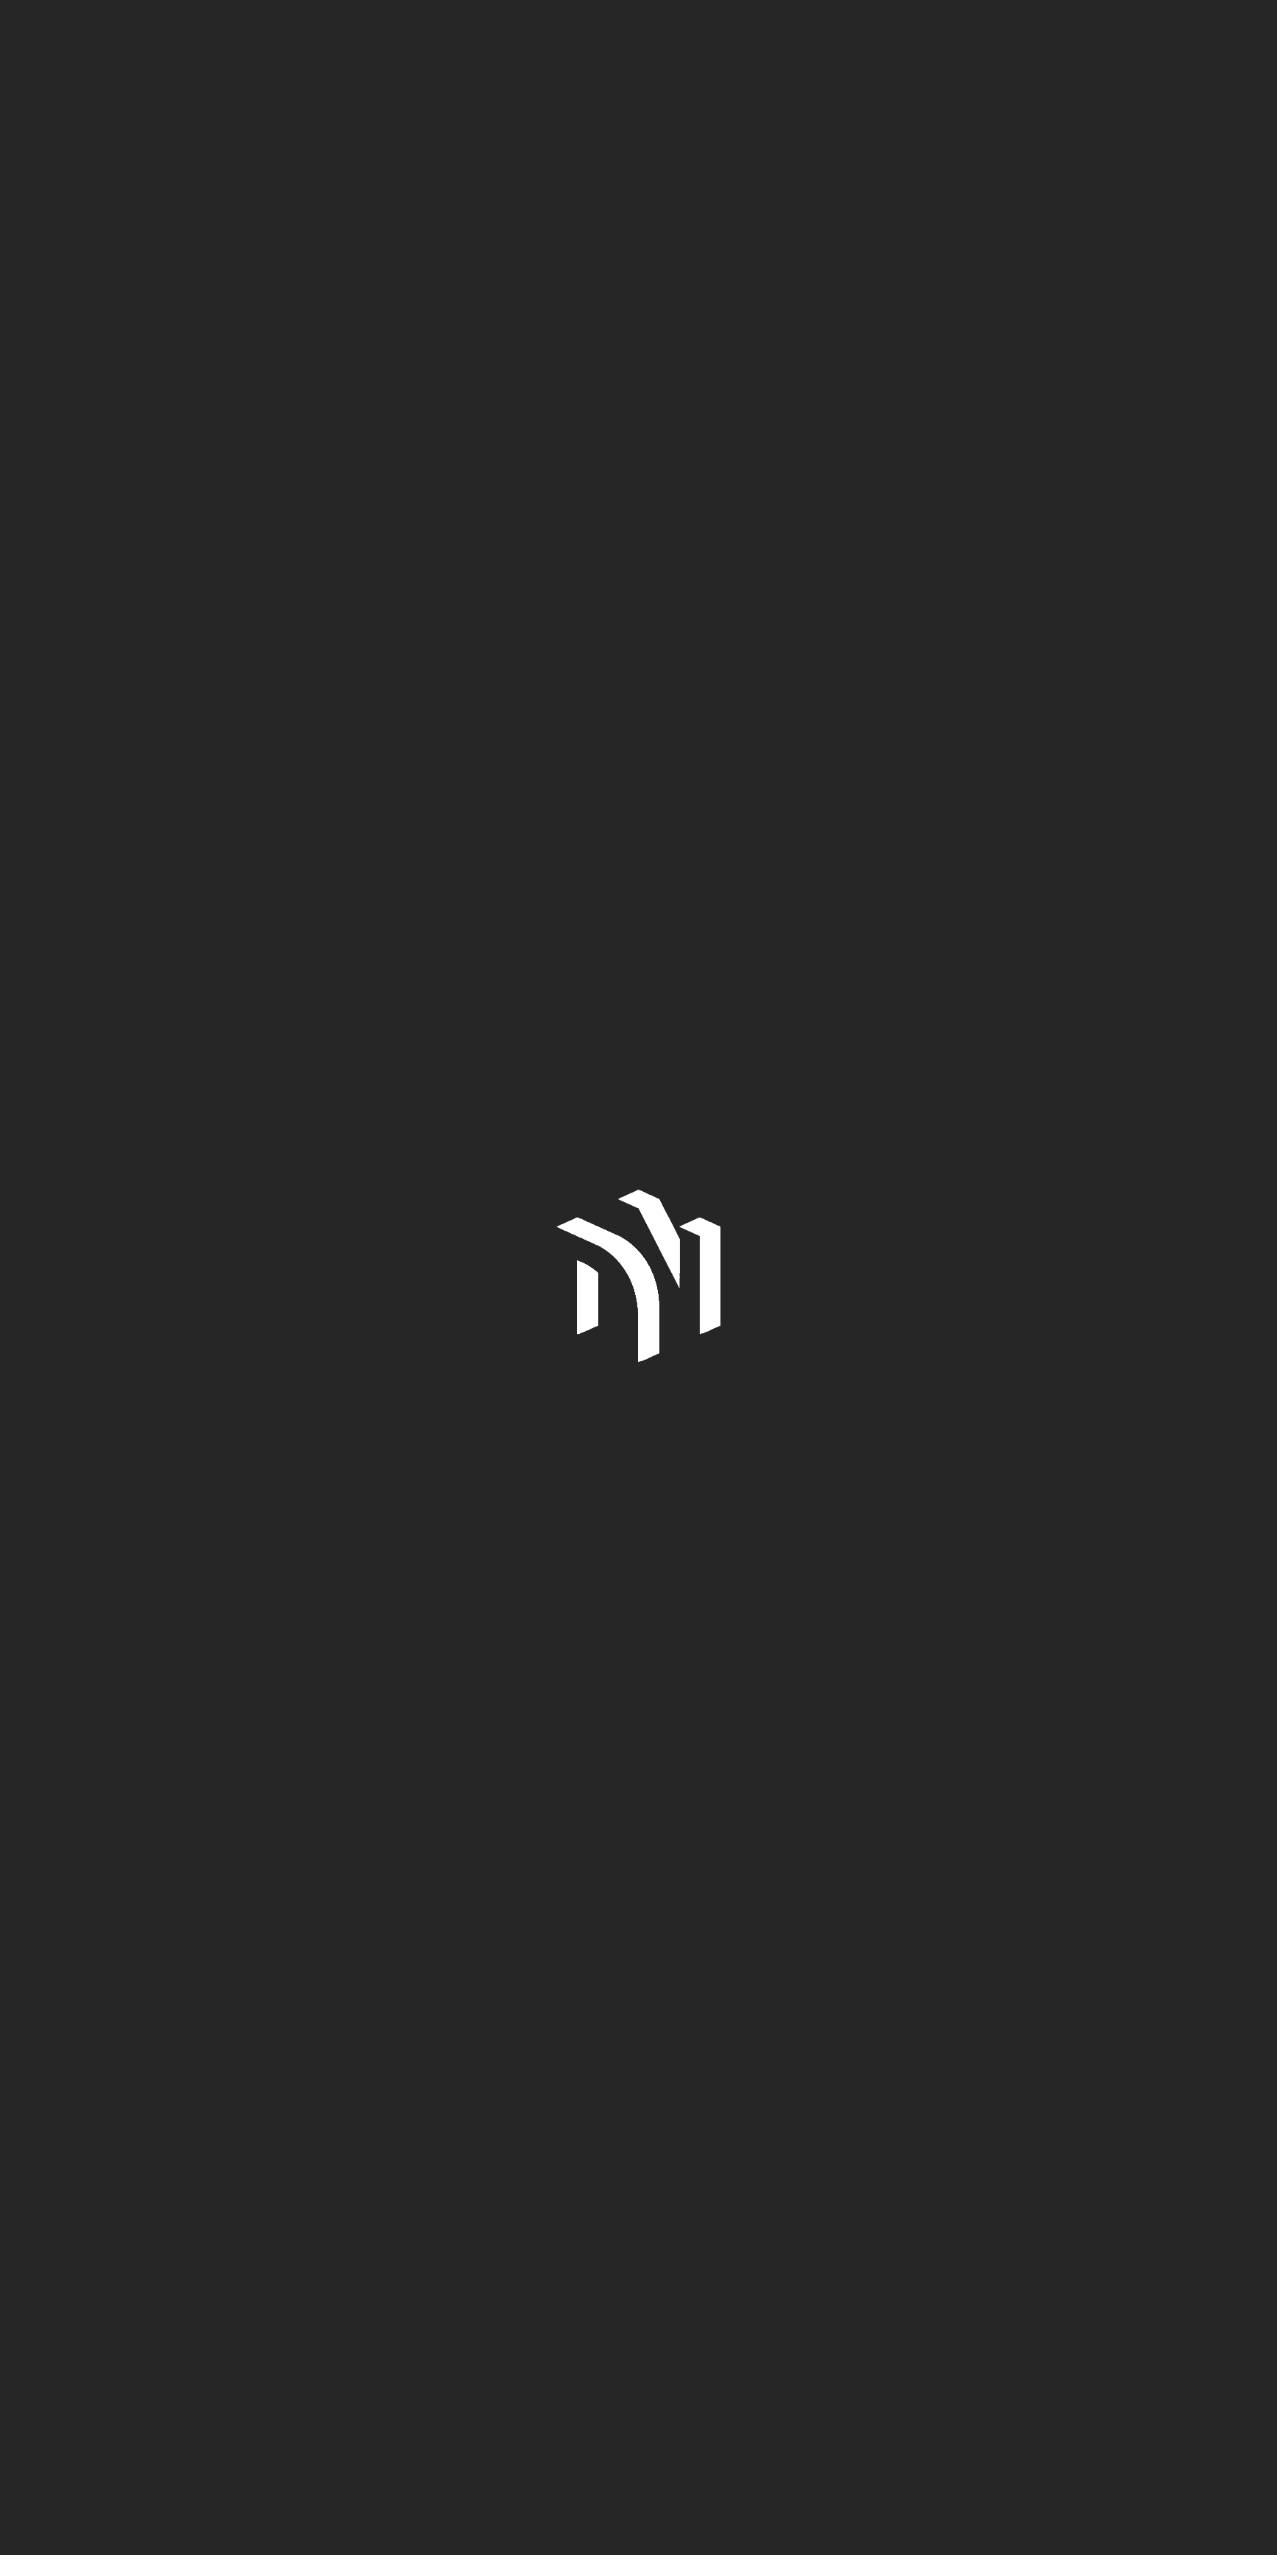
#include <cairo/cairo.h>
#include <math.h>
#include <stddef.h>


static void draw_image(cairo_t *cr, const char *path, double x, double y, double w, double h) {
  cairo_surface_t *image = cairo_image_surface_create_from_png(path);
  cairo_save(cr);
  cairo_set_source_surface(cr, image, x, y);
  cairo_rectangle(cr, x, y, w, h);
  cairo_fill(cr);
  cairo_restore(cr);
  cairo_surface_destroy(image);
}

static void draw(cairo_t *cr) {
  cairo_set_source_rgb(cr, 38 / 255.0, 38 / 255.0, 38 / 255.0);
  cairo_paint(cr);
  draw_image(cr, "images/1.png", 556, 1189, 165, 173);
}

int main(void) {
  cairo_surface_t *surface = cairo_image_surface_create(CAIRO_FORMAT_RGB24, 1277, 2555);
  cairo_t *cr = cairo_create(surface);
  cairo_font_options_t *options = cairo_font_options_create();
  cairo_font_options_set_hint_metrics(options, CAIRO_HINT_METRICS_OFF);
  cairo_font_options_set_hint_style(options, CAIRO_HINT_STYLE_NONE);
  cairo_set_font_options(cr, options);
  cairo_set_miter_limit(cr, 4);
  draw(cr);
  cairo_surface_write_to_png(surface, "out.png");
  cairo_font_options_destroy(options);
  cairo_destroy(cr);
  cairo_surface_destroy(surface);
  return 0;
}
